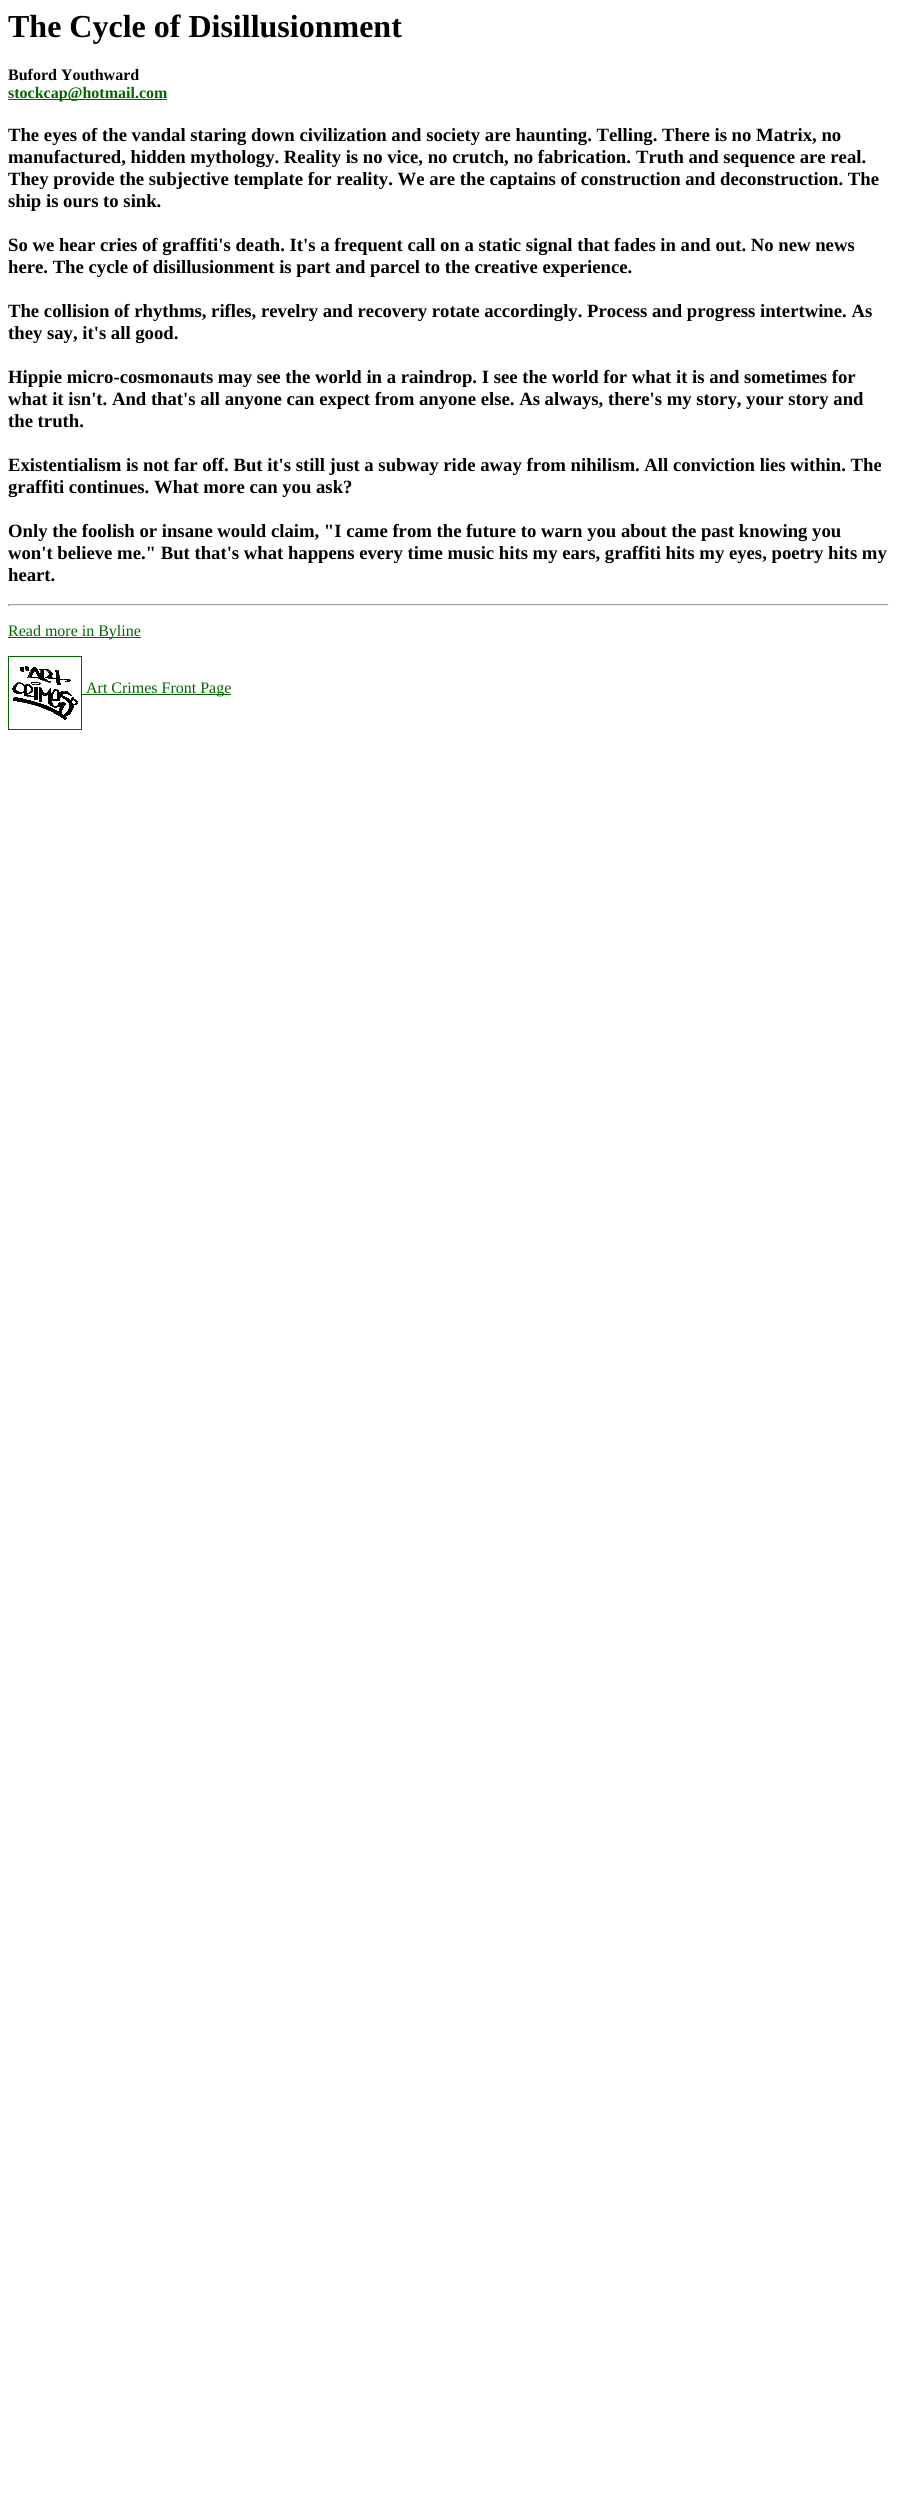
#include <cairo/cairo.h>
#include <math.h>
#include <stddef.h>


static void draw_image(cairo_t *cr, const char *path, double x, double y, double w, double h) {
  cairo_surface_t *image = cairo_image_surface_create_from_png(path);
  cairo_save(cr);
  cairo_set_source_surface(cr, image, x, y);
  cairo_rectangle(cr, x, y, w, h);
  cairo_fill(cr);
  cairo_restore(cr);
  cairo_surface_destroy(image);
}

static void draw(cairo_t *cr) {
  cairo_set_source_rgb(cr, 1, 1, 1);
  cairo_paint(cr);
  cairo_set_source_rgb(cr, 0, 102 / 255.0, 0);
  cairo_rectangle(cr, 8, 99, 159, 1);
  cairo_fill(cr);
  cairo_set_source_rgb(cr, 159 / 255.0, 159 / 255.0, 159 / 255.0);
  cairo_rectangle(cr, 8, 604, 881, 1);
  cairo_fill(cr);
  cairo_set_source_rgb(cr, 238 / 255.0, 238 / 255.0, 238 / 255.0);
  cairo_rectangle(cr, 888, 604, 1, 2);
  cairo_fill(cr);
  cairo_rectangle(cr, 8, 605, 881, 1);
  cairo_fill(cr);
  cairo_set_source_rgb(cr, 159 / 255.0, 159 / 255.0, 159 / 255.0);
  cairo_rectangle(cr, 8, 604, 1, 2);
  cairo_fill(cr);
  cairo_set_source_rgb(cr, 0, 102 / 255.0, 0);
  cairo_rectangle(cr, 8, 637, 133, 1);
  cairo_fill(cr);
  cairo_rectangle(cr, 8.5, 656.5, 73, 73);
  cairo_set_line_width(cr, 1);
  cairo_stroke(cr);
  draw_image(cr, "images/1.png", 12, 666, 66, 54);
  cairo_rectangle(cr, 82, 694, 149, 1);
  cairo_fill(cr);
  cairo_select_font_face(cr, "Liberation Serif", CAIRO_FONT_SLANT_NORMAL, CAIRO_FONT_WEIGHT_BOLD);
  cairo_set_font_size(cr, 32);
  cairo_set_source_rgb(cr, 0, 0, 0);
  cairo_move_to(cr, 8, 37);
  cairo_show_text(cr, "The Cycle of Disillusionment");
  cairo_set_font_size(cr, 16);
  cairo_move_to(cr, 8, 80);
  cairo_show_text(cr, "Buford Youthward");
  cairo_set_source_rgb(cr, 0, 102 / 255.0, 0);
  cairo_move_to(cr, 8, 98);
  cairo_show_text(cr, "stockcap@hotmail.com");
  cairo_set_font_size(cr, 18.7);
  cairo_set_source_rgb(cr, 0, 0, 0);
  cairo_move_to(cr, 8, 141);
  cairo_show_text(cr, "The eyes of the vandal staring down civilization and society are haunting. Telling. There is no Matrix, no");
  cairo_move_to(cr, 8, 163);
  cairo_show_text(cr, "manufactured, hidden mythology. Reality is no vice, no crutch, no fabrication.");
  cairo_move_to(cr, 636, 163);
  cairo_show_text(cr, "Truth and sequence are real.");
  cairo_move_to(cr, 8, 185);
  cairo_show_text(cr, "They provide the subjective template for reality. We are the captains of construction and deconstruction. The");
  cairo_move_to(cr, 8, 207);
  cairo_show_text(cr, "ship is ours to sink.");
  cairo_move_to(cr, 8, 251);
  cairo_show_text(cr, "So we hear cries of graffiti's death. It's a frequent call on a static signal that fades in and out. No new news");
  cairo_move_to(cr, 8, 273);
  cairo_show_text(cr, "here. The cycle of disillusionment is part and parcel to the creative experience.");
  cairo_move_to(cr, 8, 317);
  cairo_show_text(cr, "The collision of rhythms, rifles, revelry and recovery rotate accordingly. Process and progress intertwine. As");
  cairo_move_to(cr, 8, 339);
  cairo_show_text(cr, "they say, it's all good.");
  cairo_move_to(cr, 8, 383);
  cairo_show_text(cr, "Hippie micro-cosmonauts may see the world in a raindrop. I see the world for what it is and sometimes for");
  cairo_move_to(cr, 8, 405);
  cairo_show_text(cr, "what it isn't. And that's all anyone can expect from anyone else. As always, there's my story, your story and");
  cairo_move_to(cr, 8, 427);
  cairo_show_text(cr, "the truth.");
  cairo_move_to(cr, 8, 471);
  cairo_show_text(cr, "Existentialism is not far off. But it's still just a subway ride away from nihilism. All conviction lies within. The");
  cairo_move_to(cr, 8, 493);
  cairo_show_text(cr, "graffiti continues. What more can you ask?");
  cairo_move_to(cr, 8, 537);
  cairo_show_text(cr, "Only the foolish or insane would claim, \"I came from the future to warn you about the past knowing you");
  cairo_move_to(cr, 8, 559);
  cairo_show_text(cr, "won't believe me.\" But that's what happens every time music hits my ears, graffiti hits my eyes, poetry hits my");
  cairo_move_to(cr, 8, 581);
  cairo_show_text(cr, "heart.");
  cairo_select_font_face(cr, "Liberation Serif", CAIRO_FONT_SLANT_NORMAL, CAIRO_FONT_WEIGHT_NORMAL);
  cairo_set_font_size(cr, 16);
  cairo_set_source_rgb(cr, 0, 102 / 255.0, 0);
  cairo_move_to(cr, 8, 636);
  cairo_show_text(cr, "Read more in Byline");
  cairo_move_to(cr, 86, 693);
  cairo_show_text(cr, "Art Crimes Front Page");
}

int main(void) {
  cairo_surface_t *surface = cairo_image_surface_create(CAIRO_FORMAT_RGB24, 897, 2500);
  cairo_t *cr = cairo_create(surface);
  cairo_font_options_t *options = cairo_font_options_create();
  cairo_font_options_set_hint_metrics(options, CAIRO_HINT_METRICS_OFF);
  cairo_font_options_set_hint_style(options, CAIRO_HINT_STYLE_NONE);
  cairo_set_font_options(cr, options);
  cairo_set_miter_limit(cr, 4);
  draw(cr);
  cairo_surface_write_to_png(surface, "out.png");
  cairo_font_options_destroy(options);
  cairo_destroy(cr);
  cairo_surface_destroy(surface);
  return 0;
}
